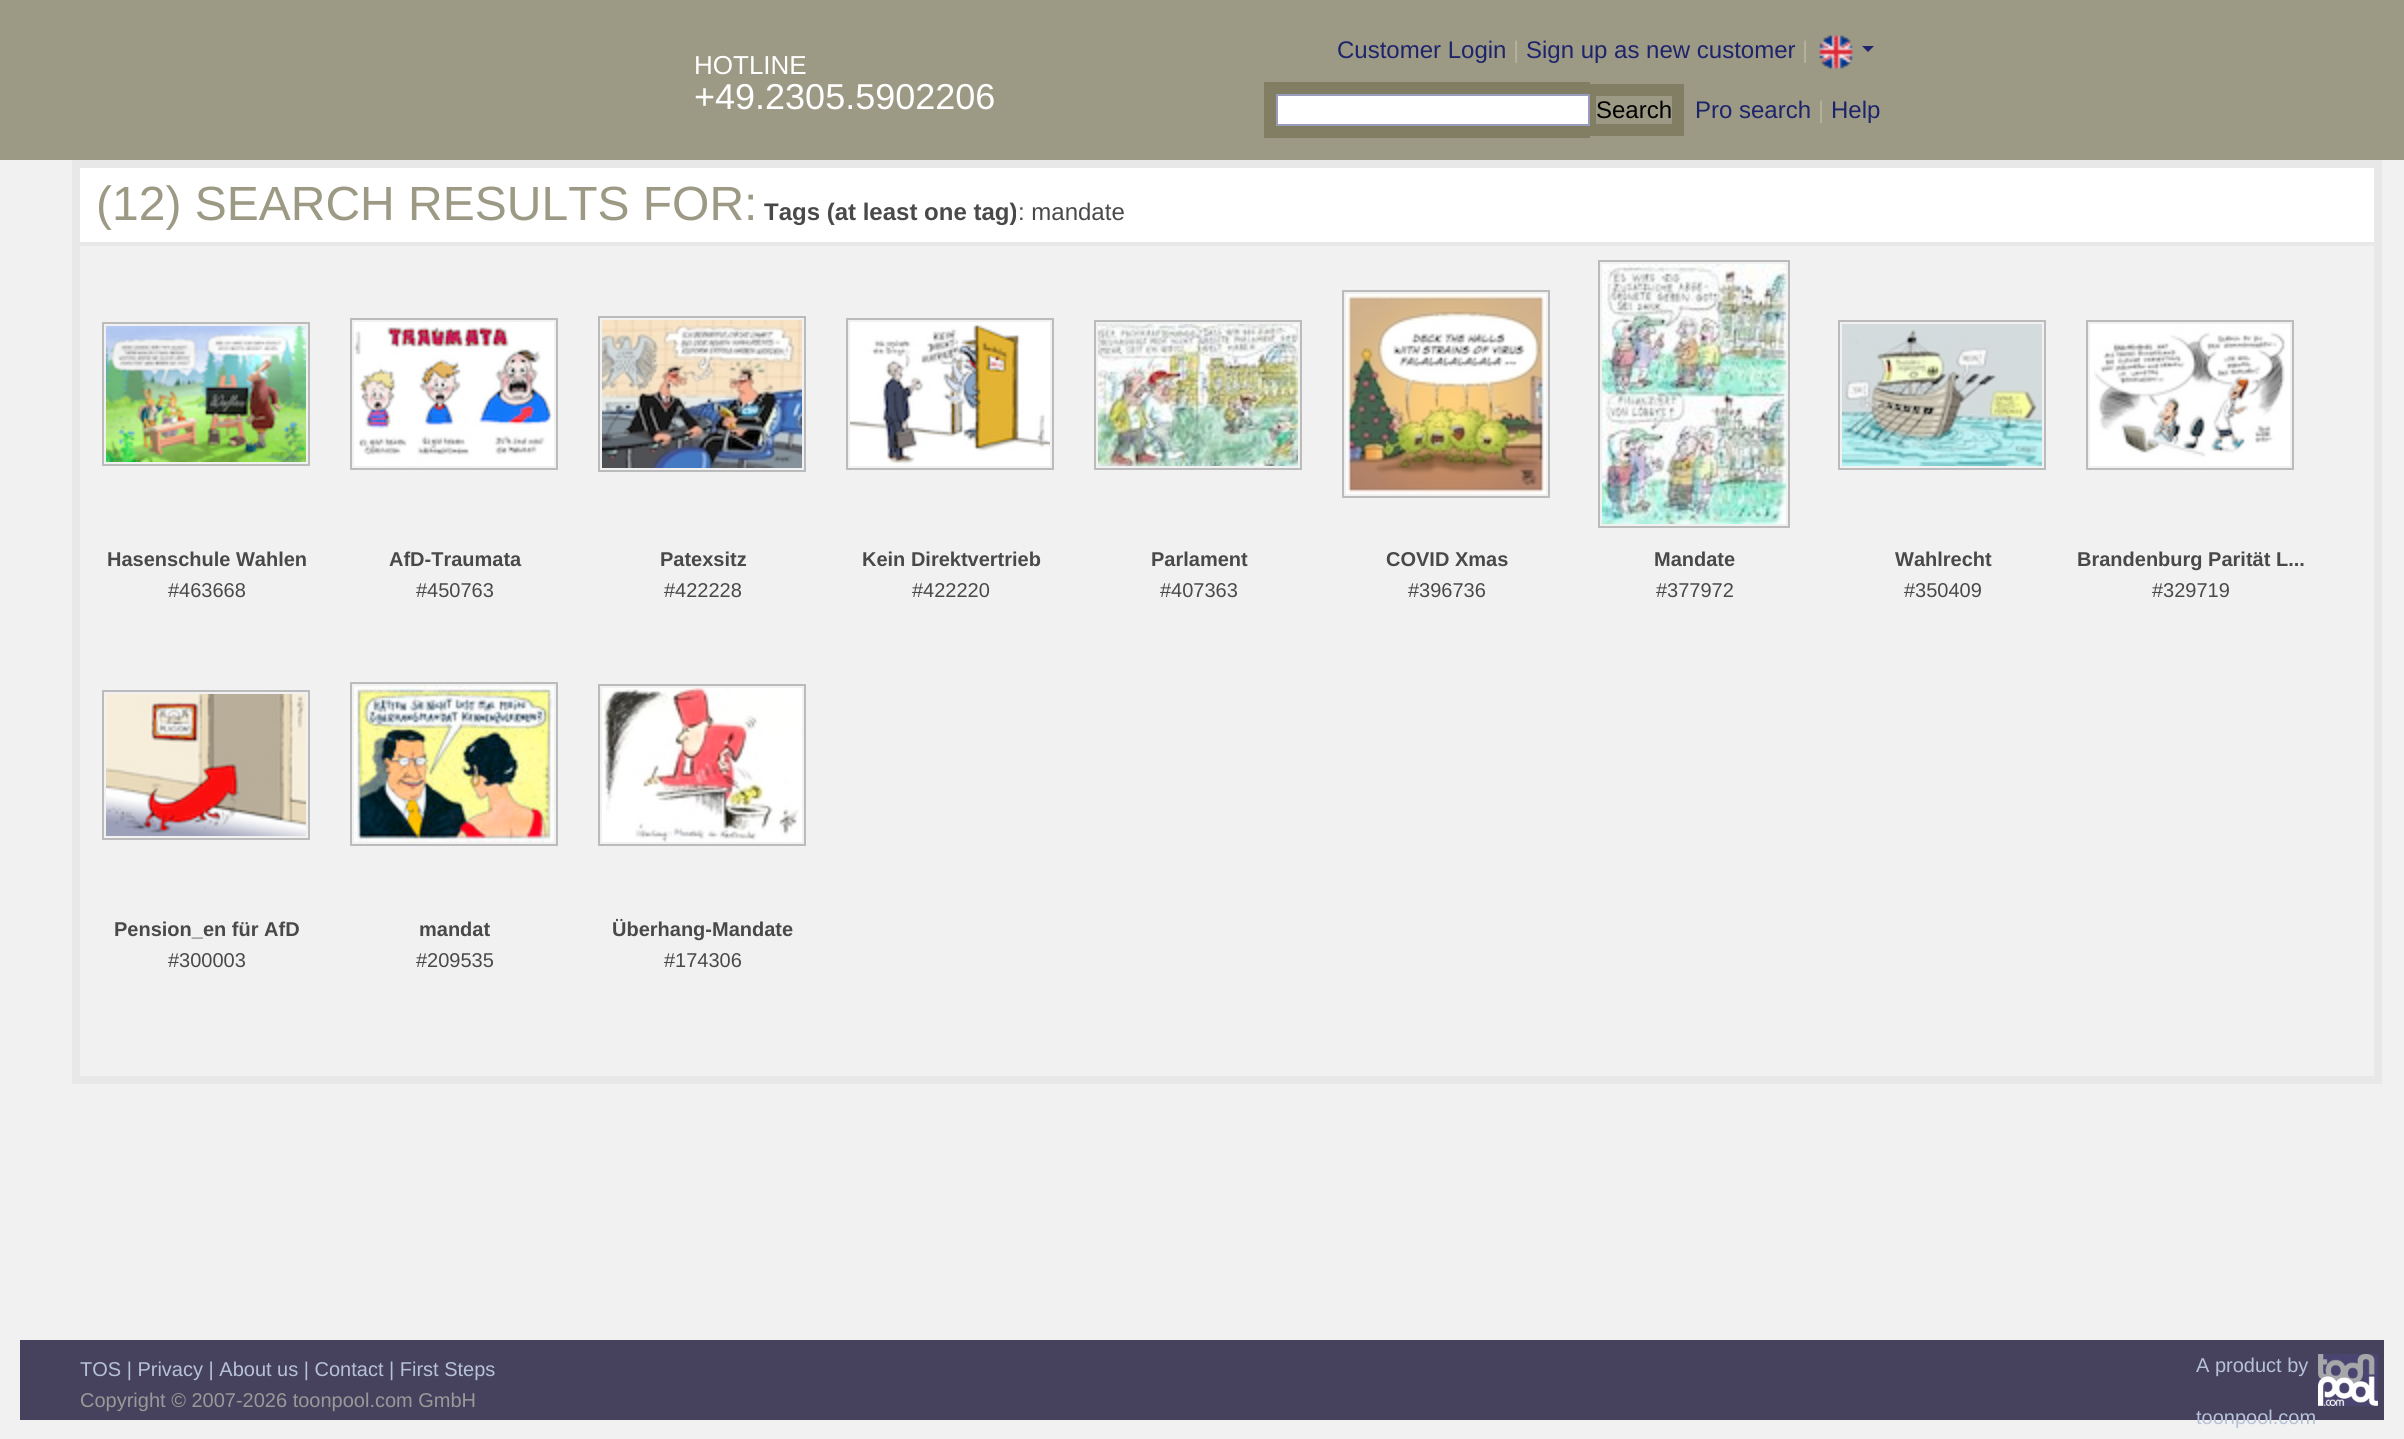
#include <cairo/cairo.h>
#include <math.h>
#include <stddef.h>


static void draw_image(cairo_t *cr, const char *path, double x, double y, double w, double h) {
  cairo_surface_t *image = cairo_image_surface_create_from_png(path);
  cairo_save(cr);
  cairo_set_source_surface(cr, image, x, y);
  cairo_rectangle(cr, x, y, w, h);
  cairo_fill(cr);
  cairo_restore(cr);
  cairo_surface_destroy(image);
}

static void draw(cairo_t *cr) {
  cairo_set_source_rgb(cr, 241 / 255.0, 241 / 255.0, 241 / 255.0);
  cairo_paint(cr);
  cairo_set_source_rgb(cr, 156 / 255.0, 153 / 255.0, 132 / 255.0);
  cairo_rectangle(cr, 0, 0, 2404, 160);
  cairo_fill(cr);
  draw_image(cr, "images/1.png", 1819, 35, 34, 34);
  cairo_set_source_rgb(cr, 29 / 255.0, 36 / 255.0, 108 / 255.0);
  cairo_new_path(cr);
  cairo_move_to(cr, 1862, 46);
  cairo_line_to(cr, 1874, 46);
  cairo_line_to(cr, 1868, 52);
  cairo_close_path(cr);
  cairo_fill(cr);
  cairo_set_source_rgb(cr, 130 / 255.0, 126 / 255.0, 99 / 255.0);
  cairo_rectangle(cr, 1264, 82, 326, 56);
  cairo_fill(cr);
  cairo_rectangle(cr, 1590, 84, 94, 52);
  cairo_fill(cr);
  cairo_set_source_rgb(cr, 1, 1, 1);
  cairo_rectangle(cr, 1277, 95, 312, 30);
  cairo_fill_preserve(cr);
  cairo_set_source_rgb(cr, 153 / 255.0, 156 / 255.0, 187 / 255.0);
  cairo_stroke(cr);
  cairo_set_source_rgb(cr, 156 / 255.0, 153 / 255.0, 132 / 255.0);
  cairo_rectangle(cr, 1596, 96, 76, 28);
  cairo_fill(cr);
  cairo_rectangle(cr, 76, 164, 2302, 916);
  cairo_set_source_rgb(cr, 232 / 255.0, 232 / 255.0, 232 / 255.0);
  cairo_set_line_width(cr, 8);
  cairo_stroke(cr);
  cairo_set_source_rgb(cr, 1, 1, 1);
  cairo_rectangle(cr, 80, 168, 2294, 74);
  cairo_fill(cr);
  cairo_set_source_rgb(cr, 232 / 255.0, 232 / 255.0, 232 / 255.0);
  cairo_rectangle(cr, 80, 242, 2294, 4);
  cairo_fill(cr);
  cairo_rectangle(cr, 103, 323, 206, 142);
  cairo_set_source_rgb(cr, 187 / 255.0, 187 / 255.0, 187 / 255.0);
  cairo_set_line_width(cr, 2);
  cairo_stroke(cr);
  draw_image(cr, "images/2.png", 106, 326, 200, 136);
  cairo_rectangle(cr, 351, 319, 206, 150);
  cairo_stroke(cr);
  draw_image(cr, "images/3.png", 354, 322, 200, 144);
  cairo_rectangle(cr, 599, 317, 206, 154);
  cairo_stroke(cr);
  draw_image(cr, "images/4.png", 602, 320, 200, 148);
  cairo_rectangle(cr, 847, 319, 206, 150);
  cairo_stroke(cr);
  draw_image(cr, "images/5.png", 850, 322, 200, 144);
  cairo_rectangle(cr, 1095, 321, 206, 148);
  cairo_stroke(cr);
  draw_image(cr, "images/6.png", 1098, 324, 200, 142);
  cairo_rectangle(cr, 1343, 291, 206, 206);
  cairo_stroke(cr);
  draw_image(cr, "images/7.png", 1346, 294, 200, 200);
  cairo_rectangle(cr, 1599, 261, 190, 266);
  cairo_stroke(cr);
  draw_image(cr, "images/8.png", 1602, 264, 184, 260);
  cairo_rectangle(cr, 1839, 321, 206, 148);
  cairo_stroke(cr);
  draw_image(cr, "images/9.png", 1842, 324, 200, 142);
  cairo_rectangle(cr, 2087, 321, 206, 148);
  cairo_stroke(cr);
  draw_image(cr, "images/10.png", 2090, 324, 200, 142);
  cairo_rectangle(cr, 103, 691, 206, 148);
  cairo_stroke(cr);
  draw_image(cr, "images/11.png", 106, 694, 200, 142);
  cairo_rectangle(cr, 351, 683, 206, 162);
  cairo_stroke(cr);
  draw_image(cr, "images/12.png", 354, 686, 200, 156);
  cairo_rectangle(cr, 599, 685, 206, 160);
  cairo_stroke(cr);
  draw_image(cr, "images/13.png", 602, 688, 200, 154);
  cairo_set_source_rgb(cr, 70 / 255.0, 65 / 255.0, 92 / 255.0);
  cairo_rectangle(cr, 20, 1340, 2364, 80);
  cairo_fill(cr);
  draw_image(cr, "images/14.png", 2318, 1354, 60, 52);
  cairo_select_font_face(cr, "Liberation Sans", CAIRO_FONT_SLANT_NORMAL, CAIRO_FONT_WEIGHT_NORMAL);
  cairo_set_font_size(cr, 24);
  cairo_set_source_rgb(cr, 29 / 255.0, 36 / 255.0, 108 / 255.0);
  cairo_move_to(cr, 1337, 58);
  cairo_show_text(cr, "Customer Login");
  cairo_set_source_rgb(cr, 181 / 255.0, 178 / 255.0, 155 / 255.0);
  cairo_move_to(cr, 1513, 58);
  cairo_show_text(cr, "|");
  cairo_set_source_rgb(cr, 29 / 255.0, 36 / 255.0, 108 / 255.0);
  cairo_move_to(cr, 1526, 58);
  cairo_show_text(cr, "Sign up as new customer");
  cairo_set_source_rgb(cr, 181 / 255.0, 178 / 255.0, 155 / 255.0);
  cairo_move_to(cr, 1802, 58);
  cairo_show_text(cr, "|");
  cairo_set_font_size(cr, 26);
  cairo_set_source_rgb(cr, 1, 1, 1);
  cairo_move_to(cr, 694, 74);
  cairo_show_text(cr, "HOTLINE");
  cairo_set_font_size(cr, 36);
  cairo_move_to(cr, 694, 109);
  cairo_show_text(cr, "+49.2305.5902206");
  cairo_set_font_size(cr, 24);
  cairo_set_source_rgb(cr, 0, 0, 0);
  cairo_move_to(cr, 1596, 118);
  cairo_show_text(cr, "Search");
  cairo_set_source_rgb(cr, 29 / 255.0, 36 / 255.0, 108 / 255.0);
  cairo_move_to(cr, 1695, 118);
  cairo_show_text(cr, "Pro search");
  cairo_set_source_rgb(cr, 181 / 255.0, 178 / 255.0, 155 / 255.0);
  cairo_move_to(cr, 1818, 118);
  cairo_show_text(cr, "|");
  cairo_set_source_rgb(cr, 29 / 255.0, 36 / 255.0, 108 / 255.0);
  cairo_move_to(cr, 1831, 118);
  cairo_show_text(cr, "Help");
  cairo_set_font_size(cr, 48);
  cairo_set_source_rgb(cr, 156 / 255.0, 153 / 255.0, 132 / 255.0);
  cairo_move_to(cr, 96, 220);
  cairo_show_text(cr, "(12) SEARCH RESULTS FOR:");
  cairo_select_font_face(cr, "Liberation Sans", CAIRO_FONT_SLANT_NORMAL, CAIRO_FONT_WEIGHT_BOLD);
  cairo_set_font_size(cr, 24);
  cairo_set_source_rgb(cr, 73 / 255.0, 73 / 255.0, 73 / 255.0);
  cairo_move_to(cr, 764, 220);
  cairo_show_text(cr, "Tags (at least one tag)");
  cairo_select_font_face(cr, "Liberation Sans", CAIRO_FONT_SLANT_NORMAL, CAIRO_FONT_WEIGHT_NORMAL);
  cairo_move_to(cr, 1018, 220);
  cairo_show_text(cr, ": mandate");
  cairo_select_font_face(cr, "Liberation Sans", CAIRO_FONT_SLANT_NORMAL, CAIRO_FONT_WEIGHT_BOLD);
  cairo_set_font_size(cr, 20);
  cairo_move_to(cr, 107, 566);
  cairo_show_text(cr, "Hasenschule Wahlen");
  cairo_select_font_face(cr, "Liberation Sans", CAIRO_FONT_SLANT_NORMAL, CAIRO_FONT_WEIGHT_NORMAL);
  cairo_move_to(cr, 168, 597);
  cairo_show_text(cr, "#463668");
  cairo_select_font_face(cr, "Liberation Sans", CAIRO_FONT_SLANT_NORMAL, CAIRO_FONT_WEIGHT_BOLD);
  cairo_move_to(cr, 389, 566);
  cairo_show_text(cr, "AfD-Traumata");
  cairo_select_font_face(cr, "Liberation Sans", CAIRO_FONT_SLANT_NORMAL, CAIRO_FONT_WEIGHT_NORMAL);
  cairo_move_to(cr, 416, 597);
  cairo_show_text(cr, "#450763");
  cairo_select_font_face(cr, "Liberation Sans", CAIRO_FONT_SLANT_NORMAL, CAIRO_FONT_WEIGHT_BOLD);
  cairo_move_to(cr, 660, 566);
  cairo_show_text(cr, "Patexsitz");
  cairo_select_font_face(cr, "Liberation Sans", CAIRO_FONT_SLANT_NORMAL, CAIRO_FONT_WEIGHT_NORMAL);
  cairo_move_to(cr, 664, 597);
  cairo_show_text(cr, "#422228");
  cairo_select_font_face(cr, "Liberation Sans", CAIRO_FONT_SLANT_NORMAL, CAIRO_FONT_WEIGHT_BOLD);
  cairo_move_to(cr, 862, 566);
  cairo_show_text(cr, "Kein Direktvertrieb");
  cairo_select_font_face(cr, "Liberation Sans", CAIRO_FONT_SLANT_NORMAL, CAIRO_FONT_WEIGHT_NORMAL);
  cairo_move_to(cr, 912, 597);
  cairo_show_text(cr, "#422220");
  cairo_select_font_face(cr, "Liberation Sans", CAIRO_FONT_SLANT_NORMAL, CAIRO_FONT_WEIGHT_BOLD);
  cairo_move_to(cr, 1151, 566);
  cairo_show_text(cr, "Parlament");
  cairo_select_font_face(cr, "Liberation Sans", CAIRO_FONT_SLANT_NORMAL, CAIRO_FONT_WEIGHT_NORMAL);
  cairo_move_to(cr, 1160, 597);
  cairo_show_text(cr, "#407363");
  cairo_select_font_face(cr, "Liberation Sans", CAIRO_FONT_SLANT_NORMAL, CAIRO_FONT_WEIGHT_BOLD);
  cairo_move_to(cr, 1386, 566);
  cairo_show_text(cr, "COVID Xmas");
  cairo_select_font_face(cr, "Liberation Sans", CAIRO_FONT_SLANT_NORMAL, CAIRO_FONT_WEIGHT_NORMAL);
  cairo_move_to(cr, 1408, 597);
  cairo_show_text(cr, "#396736");
  cairo_select_font_face(cr, "Liberation Sans", CAIRO_FONT_SLANT_NORMAL, CAIRO_FONT_WEIGHT_BOLD);
  cairo_move_to(cr, 1654, 566);
  cairo_show_text(cr, "Mandate");
  cairo_select_font_face(cr, "Liberation Sans", CAIRO_FONT_SLANT_NORMAL, CAIRO_FONT_WEIGHT_NORMAL);
  cairo_move_to(cr, 1656, 597);
  cairo_show_text(cr, "#377972");
  cairo_select_font_face(cr, "Liberation Sans", CAIRO_FONT_SLANT_NORMAL, CAIRO_FONT_WEIGHT_BOLD);
  cairo_move_to(cr, 1895, 566);
  cairo_show_text(cr, "Wahlrecht");
  cairo_select_font_face(cr, "Liberation Sans", CAIRO_FONT_SLANT_NORMAL, CAIRO_FONT_WEIGHT_NORMAL);
  cairo_move_to(cr, 1904, 597);
  cairo_show_text(cr, "#350409");
  cairo_select_font_face(cr, "Liberation Sans", CAIRO_FONT_SLANT_NORMAL, CAIRO_FONT_WEIGHT_BOLD);
  cairo_move_to(cr, 2077, 566);
  cairo_show_text(cr, "Brandenburg Parität L...");
  cairo_select_font_face(cr, "Liberation Sans", CAIRO_FONT_SLANT_NORMAL, CAIRO_FONT_WEIGHT_NORMAL);
  cairo_move_to(cr, 2152, 597);
  cairo_show_text(cr, "#329719");
  cairo_select_font_face(cr, "Liberation Sans", CAIRO_FONT_SLANT_NORMAL, CAIRO_FONT_WEIGHT_BOLD);
  cairo_move_to(cr, 114, 936);
  cairo_show_text(cr, "Pension_en für AfD");
  cairo_select_font_face(cr, "Liberation Sans", CAIRO_FONT_SLANT_NORMAL, CAIRO_FONT_WEIGHT_NORMAL);
  cairo_move_to(cr, 168, 967);
  cairo_show_text(cr, "#300003");
  cairo_select_font_face(cr, "Liberation Sans", CAIRO_FONT_SLANT_NORMAL, CAIRO_FONT_WEIGHT_BOLD);
  cairo_move_to(cr, 419, 936);
  cairo_show_text(cr, "mandat");
  cairo_select_font_face(cr, "Liberation Sans", CAIRO_FONT_SLANT_NORMAL, CAIRO_FONT_WEIGHT_NORMAL);
  cairo_move_to(cr, 416, 967);
  cairo_show_text(cr, "#209535");
  cairo_select_font_face(cr, "Liberation Sans", CAIRO_FONT_SLANT_NORMAL, CAIRO_FONT_WEIGHT_BOLD);
  cairo_move_to(cr, 612, 936);
  cairo_show_text(cr, "Überhang-Mandate");
  cairo_select_font_face(cr, "Liberation Sans", CAIRO_FONT_SLANT_NORMAL, CAIRO_FONT_WEIGHT_NORMAL);
  cairo_move_to(cr, 664, 967);
  cairo_show_text(cr, "#174306");
  cairo_set_source_rgb(cr, 182 / 255.0, 194 / 255.0, 216 / 255.0);
  cairo_move_to(cr, 80, 1376);
  cairo_show_text(cr, "TOS | Privacy | About us | Contact | First Steps");
  cairo_set_source_rgb(cr, 153 / 255.0, 153 / 255.0, 153 / 255.0);
  cairo_move_to(cr, 80, 1407);
  cairo_show_text(cr, "Copyright © 2007-2026 toonpool.com GmbH");
  cairo_set_source_rgb(cr, 182 / 255.0, 194 / 255.0, 216 / 255.0);
  cairo_move_to(cr, 2196, 1372);
  cairo_show_text(cr, "A product by");
  cairo_move_to(cr, 2196, 1424);
  cairo_show_text(cr, "toonpool.com");
}

int main(void) {
  cairo_surface_t *surface = cairo_image_surface_create(CAIRO_FORMAT_RGB24, 2404, 1439);
  cairo_t *cr = cairo_create(surface);
  cairo_font_options_t *options = cairo_font_options_create();
  cairo_font_options_set_hint_metrics(options, CAIRO_HINT_METRICS_OFF);
  cairo_font_options_set_hint_style(options, CAIRO_HINT_STYLE_NONE);
  cairo_set_font_options(cr, options);
  cairo_set_miter_limit(cr, 4);
  draw(cr);
  cairo_surface_write_to_png(surface, "out.png");
  cairo_font_options_destroy(options);
  cairo_destroy(cr);
  cairo_surface_destroy(surface);
  return 0;
}
